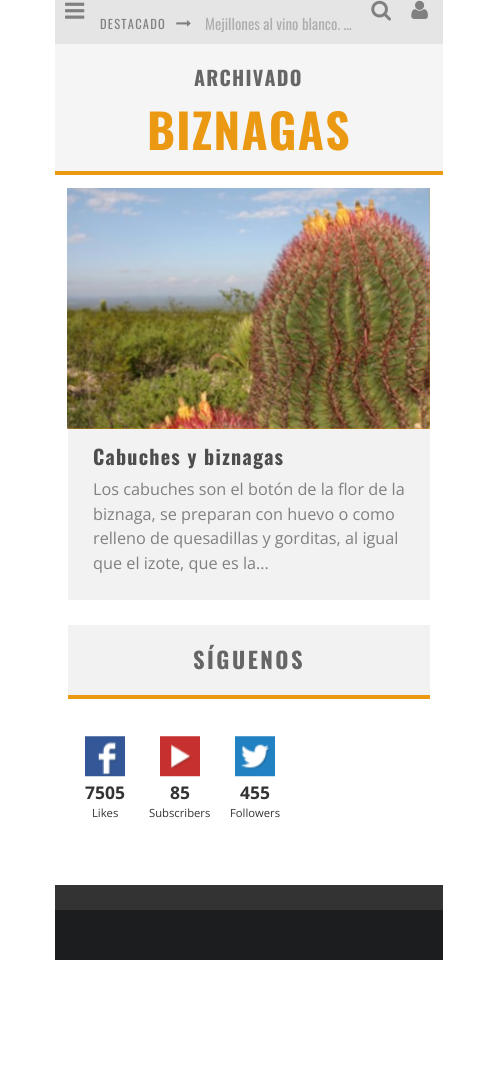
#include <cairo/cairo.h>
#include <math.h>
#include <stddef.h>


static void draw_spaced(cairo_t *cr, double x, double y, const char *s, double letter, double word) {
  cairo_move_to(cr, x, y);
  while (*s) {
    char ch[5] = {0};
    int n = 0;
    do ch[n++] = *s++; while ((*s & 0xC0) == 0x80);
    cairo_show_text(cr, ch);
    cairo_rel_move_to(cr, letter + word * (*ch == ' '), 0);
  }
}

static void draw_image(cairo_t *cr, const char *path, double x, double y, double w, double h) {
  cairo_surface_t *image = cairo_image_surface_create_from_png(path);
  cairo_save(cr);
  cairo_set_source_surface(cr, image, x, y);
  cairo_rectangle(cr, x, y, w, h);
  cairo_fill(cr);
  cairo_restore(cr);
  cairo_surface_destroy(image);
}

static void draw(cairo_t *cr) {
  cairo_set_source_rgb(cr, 1, 1, 1);
  cairo_paint(cr);
  cairo_set_source_rgb(cr, 229 / 255.0, 229 / 255.0, 229 / 255.0);
  cairo_rectangle(cr, 55, 0, 388, 44);
  cairo_fill(cr);
  draw_image(cr, "images/1.png", 65, 2, 20, 17);
  draw_image(cr, "images/2.png", 371, 0, 20, 21);
  draw_image(cr, "images/3.png", 411, 0, 17, 19);
  draw_image(cr, "images/4.png", 176, 20, 15, 7);
  cairo_set_source_rgb(cr, 245 / 255.0, 245 / 255.0, 245 / 255.0);
  cairo_rectangle(cr, 55, 44, 388, 127);
  cairo_fill(cr);
  cairo_set_source_rgb(cr, 235 / 255.0, 152 / 255.0, 18 / 255.0);
  cairo_rectangle(cr, 55, 171, 388, 4);
  cairo_fill(cr);
  cairo_set_source_rgb(cr, 242 / 255.0, 242 / 255.0, 242 / 255.0);
  cairo_rectangle(cr, 68, 429, 362, 171);
  cairo_fill(cr);
  cairo_set_source_rgb(cr, 235 / 255.0, 152 / 255.0, 18 / 255.0);
  cairo_rectangle(cr, 68, 188, 362, 241);
  cairo_fill(cr);
  draw_image(cr, "images/5.png", 67, 188, 363, 241);
  cairo_set_source_rgb(cr, 242 / 255.0, 242 / 255.0, 242 / 255.0);
  cairo_rectangle(cr, 68, 625, 362, 70);
  cairo_fill(cr);
  cairo_set_source_rgb(cr, 235 / 255.0, 152 / 255.0, 18 / 255.0);
  cairo_rectangle(cr, 68, 695, 362, 4);
  cairo_fill(cr);
  draw_image(cr, "images/6.png", 85, 736, 40, 41);
  draw_image(cr, "images/7.png", 160, 736, 40, 41);
  draw_image(cr, "images/8.png", 235, 736, 40, 41);
  cairo_set_source_rgb(cr, 51 / 255.0, 51 / 255.0, 51 / 255.0);
  cairo_rectangle(cr, 55, 885, 388, 25);
  cairo_fill(cr);
  cairo_set_source_rgb(cr, 28 / 255.0, 29 / 255.0, 30 / 255.0);
  cairo_rectangle(cr, 55, 910, 388, 50);
  cairo_fill(cr);
  cairo_select_font_face(cr, "Oswald", CAIRO_FONT_SLANT_NORMAL, CAIRO_FONT_WEIGHT_NORMAL);
  cairo_set_font_size(cr, 12.5);
  cairo_set_source_rgb(cr, 128 / 255.0, 128 / 255.0, 128 / 255.0);
  draw_spaced(cr, 100, 29, "DESTACADO", 1.25, 0);
  cairo_set_font_size(cr, 15);
  cairo_set_source_rgb(cr, 174 / 255.0, 174 / 255.0, 174 / 255.0);
  cairo_move_to(cr, 205, 30);
  cairo_show_text(cr, "Mejillones al vino blanco. …");
  cairo_select_font_face(cr, "Oswald", CAIRO_FONT_SLANT_NORMAL, CAIRO_FONT_WEIGHT_BOLD);
  cairo_set_font_size(cr, 20);
  cairo_set_source_rgb(cr, 102 / 255.0, 102 / 255.0, 102 / 255.0);
  draw_spaced(cr, 194, 86, "ARCHIVADO", 1.25, 0);
  cairo_set_font_size(cr, 47.5);
  cairo_set_source_rgb(cr, 235 / 255.0, 152 / 255.0, 18 / 255.0);
  draw_spaced(cr, 147, 150, "BIZNAGAS", 1.25, 0);
  cairo_set_font_size(cr, 20);
  cairo_set_source_rgb(cr, 77 / 255.0, 77 / 255.0, 77 / 255.0);
  draw_spaced(cr, 93, 465, "Cabuches y biznagas", 1.25, 0);
  cairo_select_font_face(cr, "Open Sans", CAIRO_FONT_SLANT_NORMAL, CAIRO_FONT_WEIGHT_NORMAL);
  cairo_set_font_size(cr, 16.25);
  cairo_set_source_rgb(cr, 128 / 255.0, 128 / 255.0, 128 / 255.0);
  cairo_move_to(cr, 93, 495);
  cairo_show_text(cr, "Los cabuches son el botón de la flor de la");
  cairo_move_to(cr, 93, 520);
  cairo_show_text(cr, "biznaga, se preparan con huevo o como");
  cairo_move_to(cr, 93, 544);
  cairo_show_text(cr, "relleno de quesadillas y gorditas, al igual");
  cairo_move_to(cr, 93, 569);
  cairo_show_text(cr, "que el izote, que es la...");
  cairo_select_font_face(cr, "Oswald", CAIRO_FONT_SLANT_NORMAL, CAIRO_FONT_WEIGHT_BOLD);
  cairo_set_font_size(cr, 22.5);
  cairo_set_source_rgb(cr, 102 / 255.0, 102 / 255.0, 102 / 255.0);
  draw_spaced(cr, 193, 669, "SÍGUENOS", 2.5, 0);
  cairo_select_font_face(cr, "Open Sans", CAIRO_FONT_SLANT_NORMAL, CAIRO_FONT_WEIGHT_BOLD);
  cairo_set_font_size(cr, 17.5);
  cairo_set_source_rgb(cr, 51 / 255.0, 51 / 255.0, 51 / 255.0);
  cairo_move_to(cr, 85, 799);
  cairo_show_text(cr, "7505");
  cairo_select_font_face(cr, "Open Sans", CAIRO_FONT_SLANT_NORMAL, CAIRO_FONT_WEIGHT_NORMAL);
  cairo_set_font_size(cr, 11.25);
  cairo_move_to(cr, 92, 817);
  cairo_show_text(cr, "Likes");
  cairo_select_font_face(cr, "Open Sans", CAIRO_FONT_SLANT_NORMAL, CAIRO_FONT_WEIGHT_BOLD);
  cairo_set_font_size(cr, 17.5);
  cairo_move_to(cr, 170, 799);
  cairo_show_text(cr, "85");
  cairo_select_font_face(cr, "Open Sans", CAIRO_FONT_SLANT_NORMAL, CAIRO_FONT_WEIGHT_NORMAL);
  cairo_set_font_size(cr, 11.25);
  cairo_move_to(cr, 149, 817);
  cairo_show_text(cr, "Subscribers");
  cairo_select_font_face(cr, "Open Sans", CAIRO_FONT_SLANT_NORMAL, CAIRO_FONT_WEIGHT_BOLD);
  cairo_set_font_size(cr, 17.5);
  cairo_move_to(cr, 240, 799);
  cairo_show_text(cr, "455");
  cairo_select_font_face(cr, "Open Sans", CAIRO_FONT_SLANT_NORMAL, CAIRO_FONT_WEIGHT_NORMAL);
  cairo_set_font_size(cr, 11.25);
  cairo_move_to(cr, 230, 817);
  cairo_show_text(cr, "Followers");
}

int main(void) {
  cairo_surface_t *surface = cairo_image_surface_create(CAIRO_FORMAT_RGB24, 497, 1079);
  cairo_t *cr = cairo_create(surface);
  cairo_font_options_t *options = cairo_font_options_create();
  cairo_font_options_set_hint_metrics(options, CAIRO_HINT_METRICS_OFF);
  cairo_font_options_set_hint_style(options, CAIRO_HINT_STYLE_NONE);
  cairo_set_font_options(cr, options);
  cairo_set_miter_limit(cr, 4);
  draw(cr);
  cairo_surface_write_to_png(surface, "out.png");
  cairo_font_options_destroy(options);
  cairo_destroy(cr);
  cairo_surface_destroy(surface);
  return 0;
}
